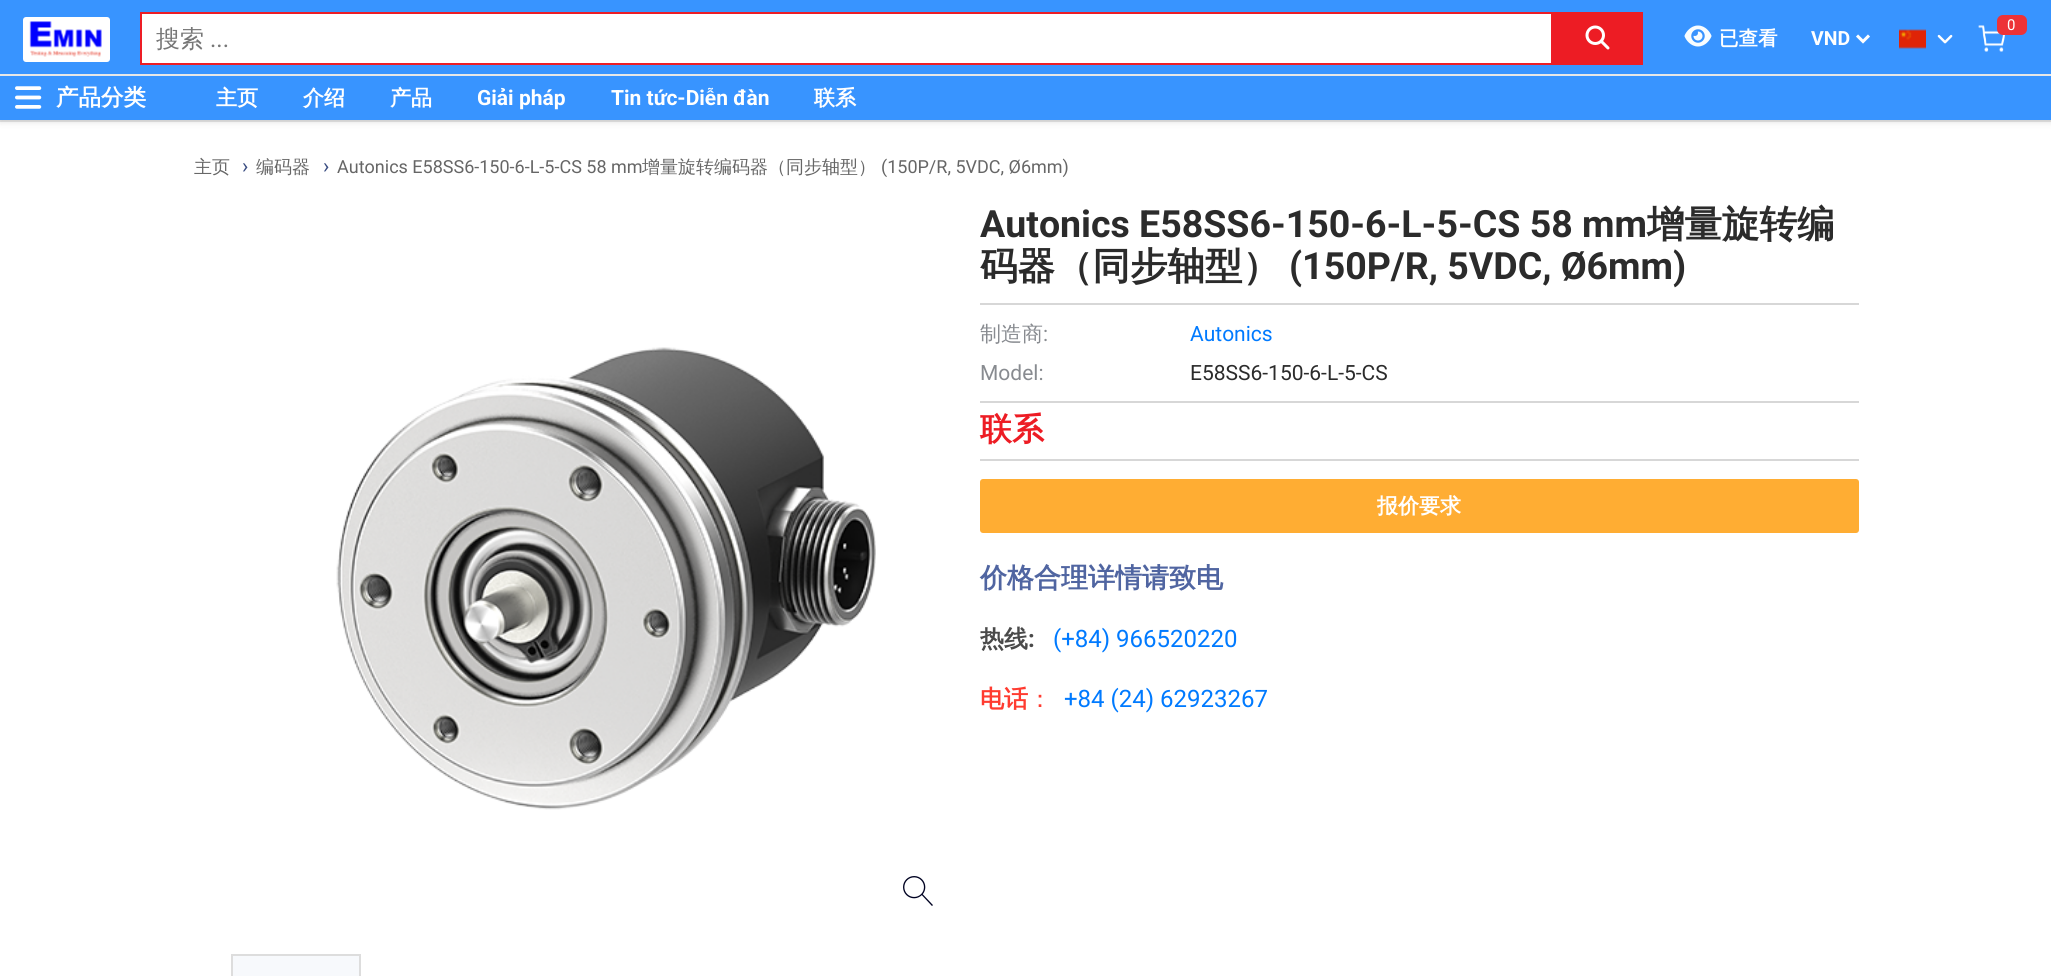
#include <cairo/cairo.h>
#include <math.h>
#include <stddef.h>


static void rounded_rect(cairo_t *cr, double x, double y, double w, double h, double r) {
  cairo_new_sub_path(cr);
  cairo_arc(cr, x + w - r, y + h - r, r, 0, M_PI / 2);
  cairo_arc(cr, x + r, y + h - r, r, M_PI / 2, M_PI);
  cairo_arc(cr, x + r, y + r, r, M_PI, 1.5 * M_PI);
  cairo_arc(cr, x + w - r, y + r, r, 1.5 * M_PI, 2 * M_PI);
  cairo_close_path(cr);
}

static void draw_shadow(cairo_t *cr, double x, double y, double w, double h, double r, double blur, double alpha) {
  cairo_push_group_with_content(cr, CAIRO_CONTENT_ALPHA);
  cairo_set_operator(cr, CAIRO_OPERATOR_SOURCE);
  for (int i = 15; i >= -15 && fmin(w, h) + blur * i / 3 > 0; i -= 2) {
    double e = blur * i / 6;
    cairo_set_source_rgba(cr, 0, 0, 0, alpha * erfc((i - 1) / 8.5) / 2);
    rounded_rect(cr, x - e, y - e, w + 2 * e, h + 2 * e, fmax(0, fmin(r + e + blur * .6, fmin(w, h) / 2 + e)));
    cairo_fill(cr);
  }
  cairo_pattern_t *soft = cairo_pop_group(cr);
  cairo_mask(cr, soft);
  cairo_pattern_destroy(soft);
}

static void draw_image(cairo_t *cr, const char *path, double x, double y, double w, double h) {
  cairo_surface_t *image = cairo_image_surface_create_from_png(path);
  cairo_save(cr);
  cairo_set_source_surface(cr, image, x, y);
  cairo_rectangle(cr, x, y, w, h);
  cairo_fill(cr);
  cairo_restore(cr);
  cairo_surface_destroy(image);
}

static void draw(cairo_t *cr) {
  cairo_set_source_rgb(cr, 1, 1, 1);
  cairo_paint(cr);
  cairo_set_source_rgb(cr, 232 / 255.0, 232 / 255.0, 232 / 255.0);
  cairo_rectangle(cr, 0, 120, 2051, 2);
  cairo_fill(cr);
  cairo_set_source_rgb(cr, 0, 0, 0);
  draw_shadow(cr, 0, 75, 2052, 45, 0, 4, 0.21);
  cairo_set_source_rgb(cr, 56 / 255.0, 148 / 255.0, 1);
  cairo_rectangle(cr, 0, 0, 2051, 74);
  cairo_fill(cr);
  cairo_set_source_rgb(cr, 231 / 255.0, 231 / 255.0, 231 / 255.0);
  cairo_rectangle(cr, 0, 74, 2051, 2);
  cairo_fill(cr);
  cairo_set_source_rgb(cr, 1, 1, 1);
  rounded_rect(cr, 23, 17, 87, 45, 3);
  cairo_fill(cr);
  draw_image(cr, "images/1.png", 29, 21, 73, 36);
  cairo_rectangle(cr, 142, 14, 1409, 49);
  cairo_fill(cr);
  cairo_set_source_rgb(cr, 237 / 255.0, 29 / 255.0, 37 / 255.0);
  cairo_rectangle(cr, 140, 12, 1413, 2);
  cairo_fill(cr);
  cairo_rectangle(cr, 1551, 12, 2, 53);
  cairo_fill(cr);
  cairo_rectangle(cr, 140, 63, 1413, 2);
  cairo_fill(cr);
  cairo_rectangle(cr, 140, 12, 2, 53);
  cairo_fill(cr);
  cairo_set_source_rgb(cr, 237 / 255.0, 28 / 255.0, 36 / 255.0);
  cairo_rectangle(cr, 1553, 12, 90, 53);
  cairo_fill(cr);
  draw_image(cr, "images/2.png", 1585, 25, 25, 25);
  draw_image(cr, "images/3.png", 1978, 25, 27, 27);
  cairo_set_source_rgb(cr, 237 / 255.0, 50 / 255.0, 55 / 255.0);
  rounded_rect(cr, 1997, 15, 30, 20, 6);
  cairo_fill(cr);
  draw_image(cr, "images/4.png", 1684, 25, 28, 22);
  cairo_new_path(cr);
  cairo_move_to(cr, 1857, 35.5);
  cairo_line_to(cr, 1863, 41.5);
  cairo_line_to(cr, 1869, 35.5);
  cairo_set_source_rgb(cr, 1, 1, 1);
  cairo_set_line_width(cr, 3);
  cairo_stroke(cr);
  draw_image(cr, "images/5.png", 1899, 29, 27, 20);
  draw_image(cr, "images/6.png", 1937, 34, 16, 10);
  cairo_set_source_rgb(cr, 56 / 255.0, 148 / 255.0, 1);
  cairo_rectangle(cr, 0, 76, 2051, 44);
  cairo_fill(cr);
  draw_image(cr, "images/7.png", 15, 86, 27, 23);
  draw_image(cr, "images/8.png", 336, 347, 540, 463);
  draw_image(cr, "images/9.png", 903, 876, 30, 30);
  cairo_set_source_rgb(cr, 215 / 255.0, 215 / 255.0, 215 / 255.0);
  cairo_rectangle(cr, 980, 303, 879, 2);
  cairo_fill(cr);
  cairo_rectangle(cr, 980, 401, 879, 2);
  cairo_fill(cr);
  cairo_rectangle(cr, 980, 459, 879, 2);
  cairo_fill(cr);
  cairo_set_source_rgb(cr, 1, 173 / 255.0, 51 / 255.0);
  rounded_rect(cr, 980, 479, 879, 54, 3);
  cairo_fill(cr);
  cairo_set_source_rgb(cr, 247 / 255.0, 249 / 255.0, 252 / 255.0);
  cairo_rectangle(cr, 233, 956, 126, 20);
  cairo_fill(cr);
  cairo_set_source_rgb(cr, 221 / 255.0, 221 / 255.0, 221 / 255.0);
  cairo_rectangle(cr, 231, 954, 129, 2);
  cairo_fill(cr);
  cairo_rectangle(cr, 359, 954, 2, 22);
  cairo_fill(cr);
  cairo_rectangle(cr, 231, 954, 2, 22);
  cairo_fill(cr);
  cairo_select_font_face(cr, "WenQuanYi Zen Hei Medium", CAIRO_FONT_SLANT_NORMAL, CAIRO_FONT_WEIGHT_NORMAL);
  cairo_set_font_size(cr, 24);
  cairo_set_source_rgb(cr, 119 / 255.0, 119 / 255.0, 119 / 255.0);
  cairo_move_to(cr, 156, 47);
  cairo_show_text(cr, "搜索");
  cairo_select_font_face(cr, "Roboto", CAIRO_FONT_SLANT_NORMAL, CAIRO_FONT_WEIGHT_NORMAL);
  cairo_move_to(cr, 210, 47);
  cairo_show_text(cr, "...");
  cairo_set_font_size(cr, 15);
  cairo_set_source_rgb(cr, 1, 1, 1);
  cairo_move_to(cr, 2007, 30);
  cairo_show_text(cr, "0");
  cairo_select_font_face(cr, "WenQuanYi Zen Hei", CAIRO_FONT_SLANT_NORMAL, CAIRO_FONT_WEIGHT_BOLD);
  cairo_set_font_size(cr, 19.5);
  cairo_move_to(cr, 1719, 45);
  cairo_show_text(cr, "已查看");
  cairo_select_font_face(cr, "Roboto", CAIRO_FONT_SLANT_NORMAL, CAIRO_FONT_WEIGHT_BOLD);
  cairo_move_to(cr, 1811, 45);
  cairo_show_text(cr, "VND");
  cairo_select_font_face(cr, "WenQuanYi Zen Hei", CAIRO_FONT_SLANT_NORMAL, CAIRO_FONT_WEIGHT_BOLD);
  cairo_set_font_size(cr, 22.5);
  cairo_move_to(cr, 56, 105);
  cairo_show_text(cr, "产品分类");
  cairo_set_font_size(cr, 21);
  cairo_move_to(cr, 216, 105);
  cairo_show_text(cr, "主页");
  cairo_move_to(cr, 303, 105);
  cairo_show_text(cr, "介绍");
  cairo_move_to(cr, 390, 105);
  cairo_show_text(cr, "产品");
  cairo_select_font_face(cr, "Roboto", CAIRO_FONT_SLANT_NORMAL, CAIRO_FONT_WEIGHT_BOLD);
  cairo_move_to(cr, 477, 105);
  cairo_show_text(cr, "Giải pháp");
  cairo_move_to(cr, 611, 105);
  cairo_show_text(cr, "Tin tức-Diễn đàn");
  cairo_select_font_face(cr, "WenQuanYi Zen Hei", CAIRO_FONT_SLANT_NORMAL, CAIRO_FONT_WEIGHT_BOLD);
  cairo_move_to(cr, 814, 105);
  cairo_show_text(cr, "联系");
  cairo_select_font_face(cr, "WenQuanYi Zen Hei Medium", CAIRO_FONT_SLANT_NORMAL, CAIRO_FONT_WEIGHT_NORMAL);
  cairo_set_font_size(cr, 18);
  cairo_set_source_rgb(cr, 102 / 255.0, 102 / 255.0, 102 / 255.0);
  cairo_move_to(cr, 194, 173);
  cairo_show_text(cr, "主页");
  cairo_select_font_face(cr, "Roboto", CAIRO_FONT_SLANT_NORMAL, CAIRO_FONT_WEIGHT_NORMAL);
  cairo_set_font_size(cr, 21);
  cairo_set_source_rgb(cr, 57 / 255.0, 76 / 255.0, 129 / 255.0);
  cairo_move_to(cr, 242, 173);
  cairo_show_text(cr, "›");
  cairo_select_font_face(cr, "WenQuanYi Zen Hei Medium", CAIRO_FONT_SLANT_NORMAL, CAIRO_FONT_WEIGHT_NORMAL);
  cairo_set_font_size(cr, 18);
  cairo_set_source_rgb(cr, 102 / 255.0, 102 / 255.0, 102 / 255.0);
  cairo_move_to(cr, 256, 173);
  cairo_show_text(cr, "编码器");
  cairo_select_font_face(cr, "Roboto", CAIRO_FONT_SLANT_NORMAL, CAIRO_FONT_WEIGHT_NORMAL);
  cairo_set_font_size(cr, 21);
  cairo_set_source_rgb(cr, 57 / 255.0, 76 / 255.0, 129 / 255.0);
  cairo_move_to(cr, 323, 173);
  cairo_show_text(cr, "›");
  cairo_set_font_size(cr, 18);
  cairo_set_source_rgb(cr, 102 / 255.0, 102 / 255.0, 102 / 255.0);
  cairo_move_to(cr, 337, 173);
  cairo_show_text(cr, "Autonics E58SS6-150-6-L-5-CS 58 mm");
  cairo_select_font_face(cr, "WenQuanYi Zen Hei Medium", CAIRO_FONT_SLANT_NORMAL, CAIRO_FONT_WEIGHT_NORMAL);
  cairo_move_to(cr, 642, 173);
  cairo_show_text(cr, "增量旋转编码器（同步轴型）");
  cairo_select_font_face(cr, "Roboto", CAIRO_FONT_SLANT_NORMAL, CAIRO_FONT_WEIGHT_NORMAL);
  cairo_move_to(cr, 881, 173);
  cairo_show_text(cr, "(150P/R, 5VDC, Ø6mm)");
  cairo_select_font_face(cr, "Roboto", CAIRO_FONT_SLANT_NORMAL, CAIRO_FONT_WEIGHT_BOLD);
  cairo_set_font_size(cr, 37.5);
  cairo_set_source_rgb(cr, 43 / 255.0, 43 / 255.0, 43 / 255.0);
  cairo_move_to(cr, 980, 237);
  cairo_show_text(cr, "Autonics E58SS6-150-6-L-5-CS 58 mm");
  cairo_select_font_face(cr, "WenQuanYi Zen Hei", CAIRO_FONT_SLANT_NORMAL, CAIRO_FONT_WEIGHT_BOLD);
  cairo_move_to(cr, 1647, 237);
  cairo_show_text(cr, "增量旋转编");
  cairo_move_to(cr, 980, 279);
  cairo_show_text(cr, "码器（同步轴型）");
  cairo_select_font_face(cr, "Roboto", CAIRO_FONT_SLANT_NORMAL, CAIRO_FONT_WEIGHT_BOLD);
  cairo_move_to(cr, 1289, 279);
  cairo_show_text(cr, "(150P/R, 5VDC, Ø6mm)");
  cairo_select_font_face(cr, "WenQuanYi Zen Hei Medium", CAIRO_FONT_SLANT_NORMAL, CAIRO_FONT_WEIGHT_NORMAL);
  cairo_set_font_size(cr, 21);
  cairo_set_source_rgb(cr, 136 / 255.0, 139 / 255.0, 144 / 255.0);
  cairo_move_to(cr, 980, 341);
  cairo_show_text(cr, "制造商");
  cairo_select_font_face(cr, "Roboto", CAIRO_FONT_SLANT_NORMAL, CAIRO_FONT_WEIGHT_NORMAL);
  cairo_move_to(cr, 1043, 341);
  cairo_show_text(cr, ":");
  cairo_set_source_rgb(cr, 0, 122 / 255.0, 1);
  cairo_move_to(cr, 1190, 341);
  cairo_show_text(cr, "Autonics");
  cairo_set_source_rgb(cr, 136 / 255.0, 139 / 255.0, 144 / 255.0);
  cairo_move_to(cr, 980, 380);
  cairo_show_text(cr, "Model:");
  cairo_set_source_rgb(cr, 43 / 255.0, 43 / 255.0, 43 / 255.0);
  cairo_move_to(cr, 1190, 380);
  cairo_show_text(cr, "E58SS6-150-6-L-5-CS");
  cairo_select_font_face(cr, "WenQuanYi Zen Hei", CAIRO_FONT_SLANT_NORMAL, CAIRO_FONT_WEIGHT_BOLD);
  cairo_set_font_size(cr, 32);
  cairo_set_source_rgb(cr, 237 / 255.0, 28 / 255.0, 36 / 255.0);
  cairo_move_to(cr, 980, 440);
  cairo_show_text(cr, "联系");
  cairo_set_font_size(cr, 21);
  cairo_set_source_rgb(cr, 1, 1, 1);
  cairo_move_to(cr, 1377, 513);
  cairo_show_text(cr, "报价要求");
  cairo_set_font_size(cr, 27);
  cairo_set_source_rgb(cr, 80 / 255.0, 101 / 255.0, 161 / 255.0);
  cairo_move_to(cr, 980, 587);
  cairo_show_text(cr, "价格合理详情请致电");
  cairo_set_font_size(cr, 24);
  cairo_set_source_rgb(cr, 74 / 255.0, 74 / 255.0, 74 / 255.0);
  cairo_move_to(cr, 980, 647);
  cairo_show_text(cr, "热线");
  cairo_select_font_face(cr, "Roboto", CAIRO_FONT_SLANT_NORMAL, CAIRO_FONT_WEIGHT_BOLD);
  cairo_move_to(cr, 1028, 647);
  cairo_show_text(cr, ":");
  cairo_select_font_face(cr, "Roboto", CAIRO_FONT_SLANT_NORMAL, CAIRO_FONT_WEIGHT_NORMAL);
  cairo_set_source_rgb(cr, 0, 122 / 255.0, 1);
  cairo_move_to(cr, 1053, 647);
  cairo_show_text(cr, "(+84) 966520220");
  cairo_select_font_face(cr, "WenQuanYi Zen Hei", CAIRO_FONT_SLANT_NORMAL, CAIRO_FONT_WEIGHT_BOLD);
  cairo_set_source_rgb(cr, 1, 59 / 255.0, 48 / 255.0);
  cairo_move_to(cr, 980, 707);
  cairo_show_text(cr, "电话");
  cairo_select_font_face(cr, "WenQuanYi Zen Hei Medium", CAIRO_FONT_SLANT_NORMAL, CAIRO_FONT_WEIGHT_NORMAL);
  cairo_move_to(cr, 1028, 707);
  cairo_show_text(cr, "：");
  cairo_select_font_face(cr, "Roboto", CAIRO_FONT_SLANT_NORMAL, CAIRO_FONT_WEIGHT_NORMAL);
  cairo_set_source_rgb(cr, 0, 122 / 255.0, 1);
  cairo_move_to(cr, 1064, 707);
  cairo_show_text(cr, "+84 (24) 62923267");
}

int main(void) {
  cairo_surface_t *surface = cairo_image_surface_create(CAIRO_FORMAT_RGB24, 2051, 976);
  cairo_t *cr = cairo_create(surface);
  cairo_font_options_t *options = cairo_font_options_create();
  cairo_font_options_set_hint_metrics(options, CAIRO_HINT_METRICS_OFF);
  cairo_font_options_set_hint_style(options, CAIRO_HINT_STYLE_NONE);
  cairo_set_font_options(cr, options);
  cairo_set_miter_limit(cr, 4);
  draw(cr);
  cairo_surface_write_to_png(surface, "out.png");
  cairo_font_options_destroy(options);
  cairo_destroy(cr);
  cairo_surface_destroy(surface);
  return 0;
}
